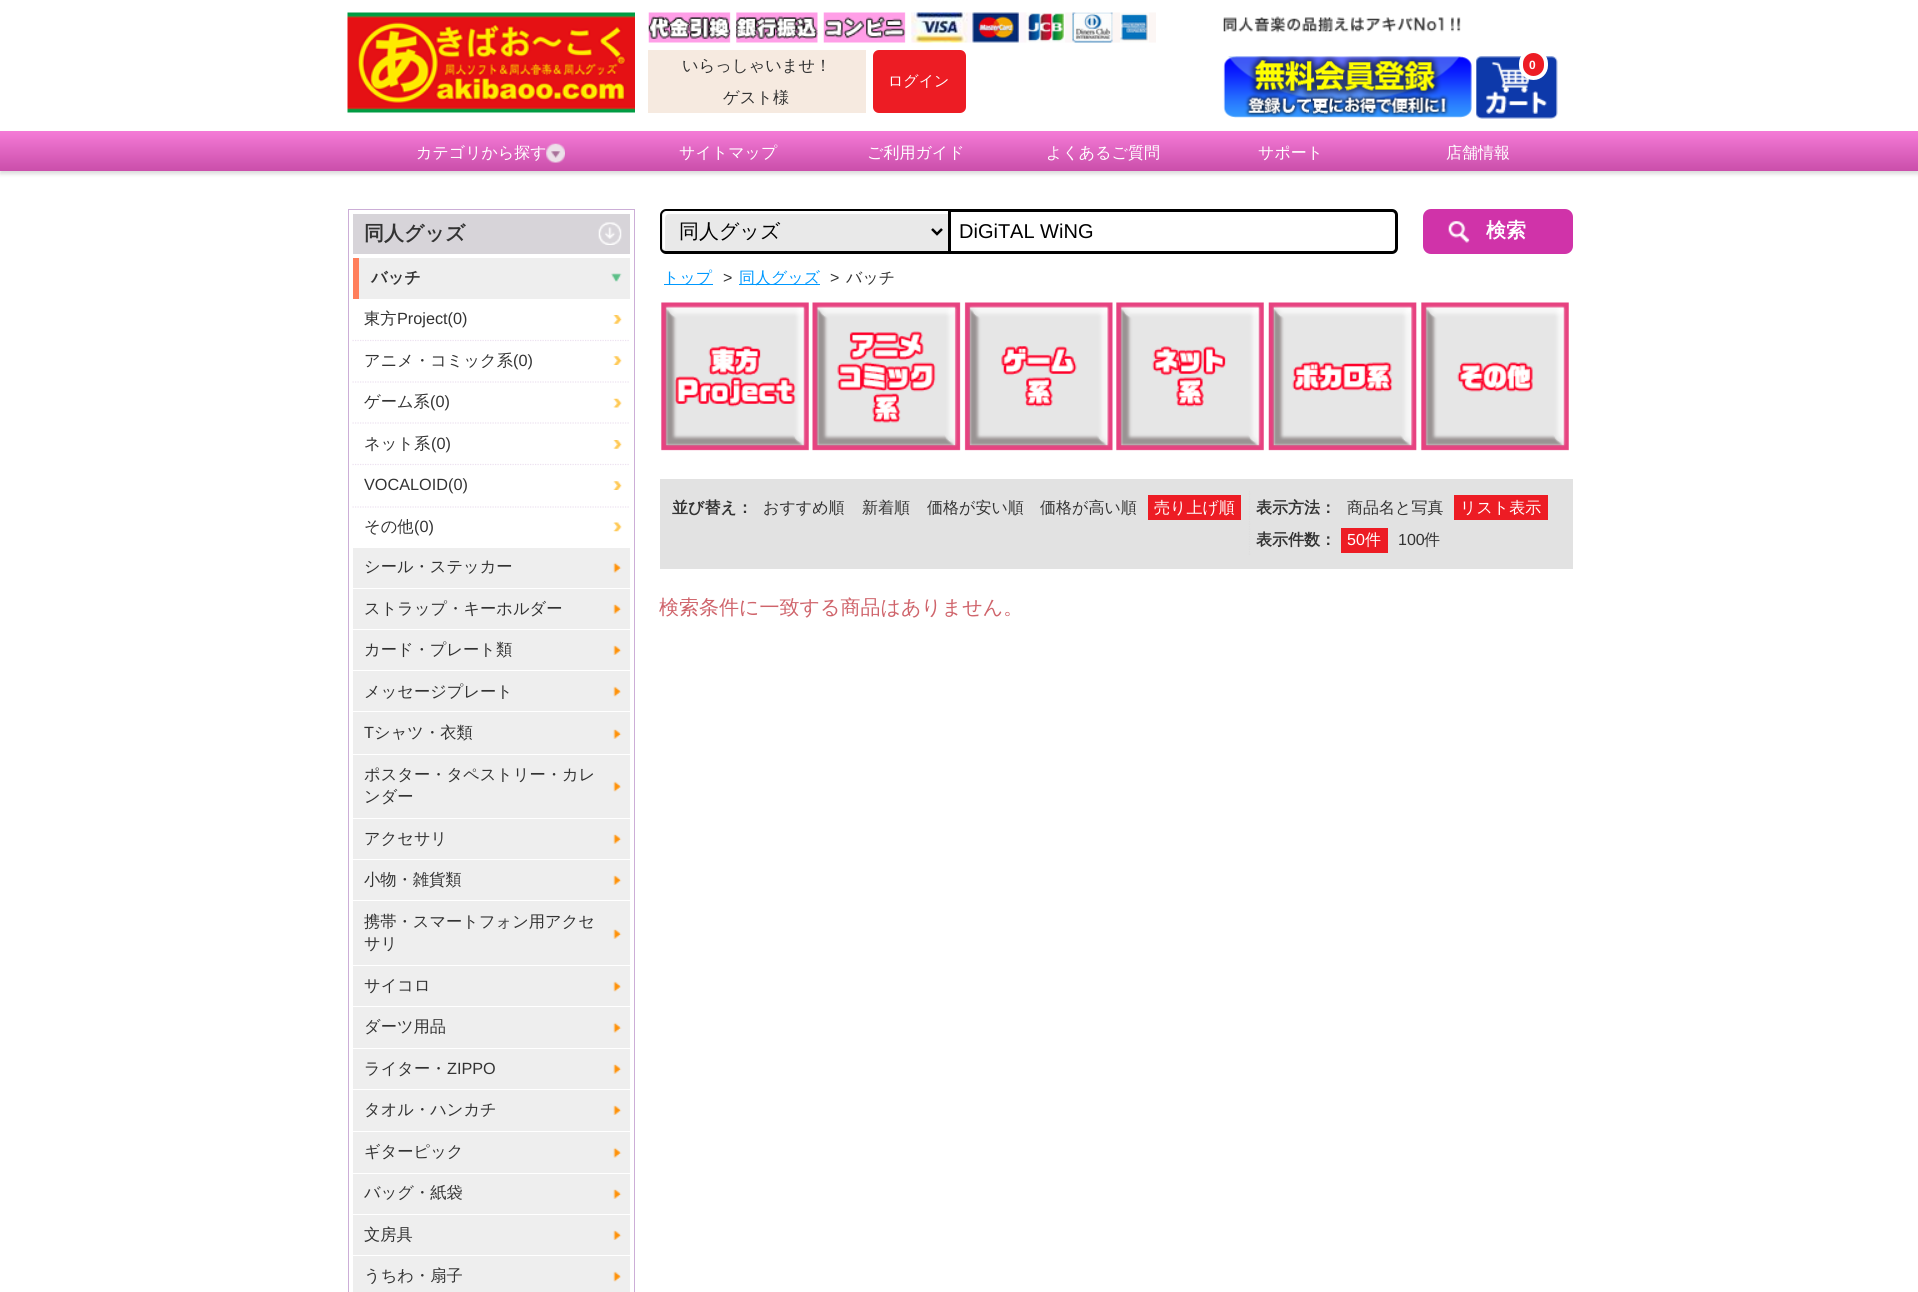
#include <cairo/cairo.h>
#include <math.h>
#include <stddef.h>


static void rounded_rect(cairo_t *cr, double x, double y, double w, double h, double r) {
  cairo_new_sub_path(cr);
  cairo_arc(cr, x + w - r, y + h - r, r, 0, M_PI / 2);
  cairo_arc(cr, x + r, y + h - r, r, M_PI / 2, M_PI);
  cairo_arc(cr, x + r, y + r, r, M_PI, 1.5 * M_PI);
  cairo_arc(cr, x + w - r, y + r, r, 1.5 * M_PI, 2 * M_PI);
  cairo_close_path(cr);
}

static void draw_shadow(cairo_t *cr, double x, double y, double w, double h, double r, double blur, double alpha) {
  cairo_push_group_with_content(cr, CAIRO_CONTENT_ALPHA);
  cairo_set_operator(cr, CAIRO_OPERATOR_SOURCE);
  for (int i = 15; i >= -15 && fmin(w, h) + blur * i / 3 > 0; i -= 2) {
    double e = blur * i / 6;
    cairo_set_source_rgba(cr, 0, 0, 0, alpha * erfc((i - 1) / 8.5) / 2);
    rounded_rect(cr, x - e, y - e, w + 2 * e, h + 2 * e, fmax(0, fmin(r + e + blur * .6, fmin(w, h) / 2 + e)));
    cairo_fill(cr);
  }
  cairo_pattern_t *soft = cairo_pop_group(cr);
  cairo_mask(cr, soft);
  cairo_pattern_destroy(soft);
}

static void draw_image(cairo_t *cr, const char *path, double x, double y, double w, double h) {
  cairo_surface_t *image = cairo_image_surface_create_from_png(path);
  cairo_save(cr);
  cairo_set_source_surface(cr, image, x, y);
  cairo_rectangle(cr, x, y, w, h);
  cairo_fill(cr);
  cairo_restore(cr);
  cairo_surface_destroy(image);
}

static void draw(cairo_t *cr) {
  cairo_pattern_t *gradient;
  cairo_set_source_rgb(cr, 1, 1, 1);
  cairo_paint(cr);
  draw_image(cr, "images/1.png", 347, 12, 288, 101);
  draw_image(cr, "images/2.png", 648, 12, 508, 31);
  cairo_set_source_rgb(cr, 246 / 255.0, 234 / 255.0, 224 / 255.0);
  cairo_rectangle(cr, 648, 50, 218, 63);
  cairo_fill(cr);
  cairo_set_source_rgb(cr, 237 / 255.0, 28 / 255.0, 36 / 255.0);
  rounded_rect(cr, 873, 50, 93, 63, 6);
  cairo_fill(cr);
  draw_image(cr, "images/3.png", 1223, 16, 238, 17);
  draw_image(cr, "images/4.png", 1223, 56, 249, 62);
  draw_image(cr, "images/5.png", 1476, 56, 82, 63);
  rounded_rect(cr, 1521, 51, 25, 27, 12.5);
  cairo_fill_preserve(cr);
  cairo_set_source_rgb(cr, 1, 1, 1);
  cairo_set_line_width(cr, 4);
  cairo_stroke(cr);
  cairo_set_source_rgb(cr, 219 / 255.0, 219 / 255.0, 219 / 255.0);
  draw_shadow(cr, 0, 134, 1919, 40, 0, 2, 1);
  gradient = cairo_pattern_create_linear(959, 131, 959, 171);
  cairo_pattern_add_color_stop_rgba(gradient, 0, 245 / 255.0, 123 / 255.0, 215 / 255.0, 1);
  cairo_pattern_add_color_stop_rgba(gradient, 1, 202 / 255.0, 78 / 255.0, 170 / 255.0, 1);
  cairo_set_source(cr, gradient);
  cairo_pattern_destroy(gradient);
  cairo_rectangle(cr, 0, 131, 1918, 40);
  cairo_fill(cr);
  draw_image(cr, "images/6.png", 546, 143, 19, 20);
  cairo_rectangle(cr, 348.5, 209.5, 286, 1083);
  cairo_set_source_rgb(cr, 204 / 255.0, 174 / 255.0, 215 / 255.0);
  cairo_set_line_width(cr, 1);
  cairo_stroke(cr);
  cairo_set_source_rgb(cr, 215 / 255.0, 212 / 255.0, 217 / 255.0);
  cairo_rectangle(cr, 353, 214, 277, 40);
  cairo_fill(cr);
  draw_image(cr, "images/7.png", 598, 222, 24, 23);
  cairo_set_source_rgb(cr, 238 / 255.0, 238 / 255.0, 238 / 255.0);
  cairo_rectangle(cr, 359, 258, 271, 41);
  cairo_fill(cr);
  draw_image(cr, "images/8.png", 611, 273, 11, 9);
  cairo_set_source_rgb(cr, 1, 126 / 255.0, 91 / 255.0);
  cairo_rectangle(cr, 353, 258, 6, 41);
  cairo_fill(cr);
  cairo_new_path(cr);
  cairo_move_to(cr, 352.5, 340.5);
  cairo_line_to(cr, 630, 340.5);
  cairo_set_source_rgb(cr, 236 / 255.0, 225 / 255.0, 240 / 255.0);
  cairo_set_line_width(cr, 1.2);
  cairo_set_dash(cr, (double[]){1.25, 1.25}, 2, 0);
  cairo_stroke(cr);
  draw_image(cr, "images/9.png", 613, 315, 9, 9);
  cairo_new_path(cr);
  cairo_move_to(cr, 352.5, 382);
  cairo_line_to(cr, 630, 382);
  cairo_stroke(cr);
  draw_image(cr, "images/10.png", 613, 356, 9, 9);
  cairo_new_path(cr);
  cairo_move_to(cr, 352.5, 423);
  cairo_line_to(cr, 630, 423);
  cairo_stroke(cr);
  draw_image(cr, "images/11.png", 613, 398, 9, 10);
  cairo_new_path(cr);
  cairo_move_to(cr, 352.5, 464.5);
  cairo_line_to(cr, 630, 464.5);
  cairo_stroke(cr);
  draw_image(cr, "images/9.png", 613, 440, 9, 9);
  cairo_new_path(cr);
  cairo_move_to(cr, 352.5, 507);
  cairo_line_to(cr, 630, 507);
  cairo_stroke(cr);
  draw_image(cr, "images/10.png", 613, 481, 9, 9);
  draw_image(cr, "images/12.png", 613, 522, 9, 10);
  cairo_set_source_rgb(cr, 238 / 255.0, 238 / 255.0, 238 / 255.0);
  cairo_rectangle(cr, 353, 548, 277, 40);
  cairo_fill(cr);
  draw_image(cr, "images/13.png", 613, 562, 9, 11);
  cairo_rectangle(cr, 353, 589, 277, 40);
  cairo_fill(cr);
  draw_image(cr, "images/14.png", 613, 604, 9, 10);
  cairo_rectangle(cr, 353, 630, 277, 40);
  cairo_fill(cr);
  draw_image(cr, "images/15.png", 613, 645, 9, 10);
  cairo_rectangle(cr, 353, 671, 277, 83);
  cairo_fill(cr);
  cairo_set_source_rgb(cr, 1, 1, 1);
  cairo_rectangle(cr, 353, 711, 277, 1);
  cairo_fill(cr);
  draw_image(cr, "images/16.png", 613, 686, 8, 11);
  draw_image(cr, "images/14.png", 613, 729, 9, 10);
  cairo_set_source_rgb(cr, 238 / 255.0, 238 / 255.0, 238 / 255.0);
  cairo_rectangle(cr, 353, 755, 277, 63);
  cairo_fill(cr);
  draw_image(cr, "images/17.png", 613, 781, 8, 11);
  cairo_rectangle(cr, 353, 819, 277, 40);
  cairo_fill(cr);
  draw_image(cr, "images/14.png", 613, 834, 9, 10);
  cairo_rectangle(cr, 353, 860, 277, 40);
  cairo_fill(cr);
  draw_image(cr, "images/15.png", 613, 875, 9, 10);
  cairo_rectangle(cr, 353, 901, 277, 64);
  cairo_fill(cr);
  draw_image(cr, "images/14.png", 613, 929, 9, 10);
  cairo_rectangle(cr, 353, 966, 277, 82);
  cairo_fill(cr);
  cairo_set_source_rgb(cr, 1, 1, 1);
  cairo_rectangle(cr, 353, 1006, 277, 1);
  cairo_fill(cr);
  draw_image(cr, "images/16.png", 613, 981, 8, 11);
  draw_image(cr, "images/18.png", 613, 1022, 9, 11);
  cairo_set_source_rgb(cr, 238 / 255.0, 238 / 255.0, 238 / 255.0);
  cairo_rectangle(cr, 353, 1049, 277, 40);
  cairo_fill(cr);
  draw_image(cr, "images/14.png", 613, 1064, 9, 10);
  cairo_rectangle(cr, 353, 1090, 277, 83);
  cairo_fill(cr);
  cairo_set_source_rgb(cr, 1, 1, 1);
  cairo_rectangle(cr, 353, 1131, 277, 1);
  cairo_fill(cr);
  draw_image(cr, "images/15.png", 613, 1105, 9, 10);
  draw_image(cr, "images/13.png", 613, 1147, 9, 11);
  cairo_set_source_rgb(cr, 238 / 255.0, 238 / 255.0, 238 / 255.0);
  cairo_rectangle(cr, 353, 1174, 277, 40);
  cairo_fill(cr);
  draw_image(cr, "images/14.png", 613, 1189, 9, 10);
  cairo_rectangle(cr, 353, 1215, 277, 40);
  cairo_fill(cr);
  draw_image(cr, "images/15.png", 613, 1230, 9, 10);
  cairo_rectangle(cr, 353, 1256, 277, 36);
  cairo_fill(cr);
  draw_image(cr, "images/16.png", 613, 1271, 8, 11);
  cairo_set_source_rgb(cr, 233 / 255.0, 233 / 255.0, 233 / 255.0);
  cairo_new_path(cr);
  cairo_move_to(cr, 666, 209);
  cairo_line_to(cr, 948, 209);
  cairo_line_to(cr, 948, 254);
  cairo_line_to(cr, 666, 254);
  cairo_curve_to(cr, 662.5, 254, 660, 251.5, 660, 248);
  cairo_line_to(cr, 660, 215);
  cairo_curve_to(cr, 660, 211.5, 662.5, 209, 666, 209);
  cairo_close_path(cr);
  cairo_fill(cr);
  cairo_set_source_rgb(cr, 1, 1, 1);
  cairo_new_path(cr);
  cairo_move_to(cr, 669, 214);
  cairo_line_to(cr, 948, 214);
  cairo_line_to(cr, 948, 211);
  cairo_line_to(cr, 667, 211);
  cairo_curve_to(cr, 665, 211, 663, 213, 663, 215);
  cairo_line_to(cr, 663, 247);
  cairo_curve_to(cr, 663, 248, 664, 250, 665, 250);
  cairo_line_to(cr, 665, 223);
  cairo_curve_to(cr, 665, 220, 664, 214, 669, 214);
  cairo_close_path(cr);
  cairo_fill(cr);
  cairo_set_source_rgb(cr, 0, 0, 0);
  cairo_set_fill_rule(cr, CAIRO_FILL_RULE_EVEN_ODD);
  cairo_new_path(cr);
  cairo_move_to(cr, 666, 209);
  cairo_line_to(cr, 948, 209);
  cairo_line_to(cr, 948, 254);
  cairo_line_to(cr, 666, 254);
  cairo_curve_to(cr, 663, 254, 660, 251, 660, 248);
  cairo_line_to(cr, 660, 215);
  cairo_curve_to(cr, 660, 212, 663, 209, 666, 209);
  cairo_close_path(cr);
  cairo_move_to(cr, 666, 211);
  cairo_line_to(cr, 948, 211);
  cairo_line_to(cr, 948, 251);
  cairo_line_to(cr, 666, 251);
  cairo_curve_to(cr, 664, 251, 662, 250, 662, 248);
  cairo_line_to(cr, 662, 215);
  cairo_curve_to(cr, 662, 213, 664, 211, 666, 211);
  cairo_close_path(cr);
  cairo_fill(cr);
  cairo_new_path(cr);
  cairo_move_to(cr, 932, 229);
  cairo_line_to(cr, 937, 234);
  cairo_line_to(cr, 942, 229);
  cairo_set_line_width(cr, 2.5);
  cairo_set_dash(cr, NULL, 0, 0);
  cairo_stroke(cr);
  cairo_new_path(cr);
  cairo_move_to(cr, 949.5, 210.5);
  cairo_line_to(cr, 1392, 210.5);
  cairo_curve_to(cr, 1394.5, 210.5, 1396.5, 212.5, 1396.5, 215);
  cairo_line_to(cr, 1396.5, 248);
  cairo_curve_to(cr, 1396.5, 250.5, 1394.5, 252.5, 1392, 252.5);
  cairo_line_to(cr, 949.5, 252.5);
  cairo_close_path(cr);
  cairo_set_line_width(cr, 3);
  cairo_stroke(cr);
  cairo_set_source_rgb(cr, 208 / 255.0, 51 / 255.0, 169 / 255.0);
  rounded_rect(cr, 1423, 209, 150, 45, 8);
  cairo_fill(cr);
  draw_image(cr, "images/19.png", 1448, 221, 22, 22);
  cairo_set_source_rgb(cr, 0, 153 / 255.0, 1);
  cairo_rectangle(cr, 664, 284, 49, 1);
  cairo_fill(cr);
  cairo_rectangle(cr, 739, 284, 81, 1);
  cairo_fill(cr);
  draw_image(cr, "images/20.png", 661, 302, 148, 149);
  draw_image(cr, "images/21.png", 812, 302, 149, 149);
  draw_image(cr, "images/22.png", 964, 302, 149, 149);
  draw_image(cr, "images/23.png", 1116, 302, 148, 149);
  draw_image(cr, "images/24.png", 1268, 302, 149, 149);
  draw_image(cr, "images/25.png", 1421, 302, 148, 149);
  cairo_set_source_rgb(cr, 226 / 255.0, 226 / 255.0, 226 / 255.0);
  cairo_rectangle(cr, 660, 479, 913, 90);
  cairo_fill(cr);
  cairo_set_source_rgb(cr, 237 / 255.0, 28 / 255.0, 36 / 255.0);
  cairo_rectangle(cr, 1148, 495, 93, 25);
  cairo_fill(cr);
  cairo_new_path(cr);
  cairo_move_to(cr, 1249.5, 491);
  cairo_line_to(cr, 1249.5, 556);
  cairo_set_source_rgb(cr, 221 / 255.0, 221 / 255.0, 221 / 255.0);
  cairo_set_line_width(cr, 1.2);
  cairo_set_dash(cr, (double[]){1.25, 1.25}, 2, 0);
  cairo_stroke(cr);
  cairo_set_source_rgb(cr, 237 / 255.0, 28 / 255.0, 36 / 255.0);
  cairo_rectangle(cr, 1454, 495, 94, 25);
  cairo_fill(cr);
  cairo_rectangle(cr, 1341, 528, 47, 25);
  cairo_fill(cr);
  cairo_select_font_face(cr, "WenQuanYi Zen Hei Medium", CAIRO_FONT_SLANT_NORMAL, CAIRO_FONT_WEIGHT_NORMAL);
  cairo_set_font_size(cr, 16.25);
  cairo_set_source_rgb(cr, 51 / 255.0, 51 / 255.0, 51 / 255.0);
  cairo_move_to(cr, 682, 71);
  cairo_show_text(cr, "いらっしゃいませ！");
  cairo_move_to(cr, 723, 103);
  cairo_show_text(cr, "ゲスト様");
  cairo_set_font_size(cr, 15);
  cairo_set_source_rgb(cr, 1, 1, 1);
  cairo_move_to(cr, 888, 86);
  cairo_show_text(cr, "ログイン");
  cairo_select_font_face(cr, "Liberation Sans", CAIRO_FONT_SLANT_NORMAL, CAIRO_FONT_WEIGHT_BOLD);
  cairo_set_font_size(cr, 12);
  cairo_move_to(cr, 1529, 69);
  cairo_show_text(cr, "0");
  cairo_select_font_face(cr, "WenQuanYi Zen Hei Medium", CAIRO_FONT_SLANT_NORMAL, CAIRO_FONT_WEIGHT_NORMAL);
  cairo_set_font_size(cr, 16);
  cairo_move_to(cr, 416, 158);
  cairo_show_text(cr, "カテゴリから探す");
  cairo_move_to(cr, 679, 158);
  cairo_show_text(cr, "サイトマップ");
  cairo_move_to(cr, 867, 158);
  cairo_show_text(cr, "ご利用ガイド");
  cairo_move_to(cr, 1046, 158);
  cairo_show_text(cr, "よくあるご質問");
  cairo_move_to(cr, 1258, 158);
  cairo_show_text(cr, "サポート");
  cairo_move_to(cr, 1446, 158);
  cairo_show_text(cr, "店舗情報");
  cairo_select_font_face(cr, "WenQuanYi Zen Hei", CAIRO_FONT_SLANT_NORMAL, CAIRO_FONT_WEIGHT_BOLD);
  cairo_set_font_size(cr, 20);
  cairo_set_source_rgb(cr, 51 / 255.0, 51 / 255.0, 51 / 255.0);
  cairo_move_to(cr, 364, 240);
  cairo_show_text(cr, "同人グッズ");
  cairo_set_font_size(cr, 16.25);
  cairo_move_to(cr, 371, 283);
  cairo_show_text(cr, "バッチ");
  cairo_select_font_face(cr, "WenQuanYi Zen Hei Medium", CAIRO_FONT_SLANT_NORMAL, CAIRO_FONT_WEIGHT_NORMAL);
  cairo_move_to(cr, 364, 324);
  cairo_show_text(cr, "東方");
  cairo_select_font_face(cr, "Liberation Sans", CAIRO_FONT_SLANT_NORMAL, CAIRO_FONT_WEIGHT_NORMAL);
  cairo_move_to(cr, 397, 324);
  cairo_show_text(cr, "Project(0)");
  cairo_select_font_face(cr, "WenQuanYi Zen Hei Medium", CAIRO_FONT_SLANT_NORMAL, CAIRO_FONT_WEIGHT_NORMAL);
  cairo_move_to(cr, 364, 366);
  cairo_show_text(cr, "アニメ・コミック系");
  cairo_select_font_face(cr, "Liberation Sans", CAIRO_FONT_SLANT_NORMAL, CAIRO_FONT_WEIGHT_NORMAL);
  cairo_move_to(cr, 513, 366);
  cairo_show_text(cr, "(0)");
  cairo_select_font_face(cr, "WenQuanYi Zen Hei Medium", CAIRO_FONT_SLANT_NORMAL, CAIRO_FONT_WEIGHT_NORMAL);
  cairo_move_to(cr, 364, 407);
  cairo_show_text(cr, "ゲーム系");
  cairo_select_font_face(cr, "Liberation Sans", CAIRO_FONT_SLANT_NORMAL, CAIRO_FONT_WEIGHT_NORMAL);
  cairo_move_to(cr, 430, 407);
  cairo_show_text(cr, "(0)");
  cairo_select_font_face(cr, "WenQuanYi Zen Hei Medium", CAIRO_FONT_SLANT_NORMAL, CAIRO_FONT_WEIGHT_NORMAL);
  cairo_move_to(cr, 364, 449);
  cairo_show_text(cr, "ネット系");
  cairo_select_font_face(cr, "Liberation Sans", CAIRO_FONT_SLANT_NORMAL, CAIRO_FONT_WEIGHT_NORMAL);
  cairo_move_to(cr, 431, 449);
  cairo_show_text(cr, "(0)");
  cairo_move_to(cr, 364, 490);
  cairo_show_text(cr, "VOCALOID(0)");
  cairo_select_font_face(cr, "WenQuanYi Zen Hei Medium", CAIRO_FONT_SLANT_NORMAL, CAIRO_FONT_WEIGHT_NORMAL);
  cairo_move_to(cr, 364, 532);
  cairo_show_text(cr, "その他");
  cairo_select_font_face(cr, "Liberation Sans", CAIRO_FONT_SLANT_NORMAL, CAIRO_FONT_WEIGHT_NORMAL);
  cairo_move_to(cr, 414, 532);
  cairo_show_text(cr, "(0)");
  cairo_select_font_face(cr, "WenQuanYi Zen Hei Medium", CAIRO_FONT_SLANT_NORMAL, CAIRO_FONT_WEIGHT_NORMAL);
  cairo_move_to(cr, 364, 572);
  cairo_show_text(cr, "シール・ステッカー");
  cairo_move_to(cr, 364, 614);
  cairo_show_text(cr, "ストラップ・キーホルダー");
  cairo_move_to(cr, 364, 655);
  cairo_show_text(cr, "カード・プレート類");
  cairo_move_to(cr, 364, 697);
  cairo_show_text(cr, "メッセージプレート");
  cairo_select_font_face(cr, "Liberation Sans", CAIRO_FONT_SLANT_NORMAL, CAIRO_FONT_WEIGHT_NORMAL);
  cairo_move_to(cr, 364, 738);
  cairo_show_text(cr, "T");
  cairo_select_font_face(cr, "WenQuanYi Zen Hei Medium", CAIRO_FONT_SLANT_NORMAL, CAIRO_FONT_WEIGHT_NORMAL);
  cairo_move_to(cr, 374, 738);
  cairo_show_text(cr, "シャツ・衣類");
  cairo_move_to(cr, 364, 780);
  cairo_show_text(cr, "ポスター・タペストリー・カレ");
  cairo_move_to(cr, 364, 802);
  cairo_show_text(cr, "ンダー");
  cairo_move_to(cr, 364, 844);
  cairo_show_text(cr, "アクセサリ");
  cairo_move_to(cr, 364, 885);
  cairo_show_text(cr, "小物・雑貨類");
  cairo_move_to(cr, 364, 927);
  cairo_show_text(cr, "携帯・スマートフォン用アクセ");
  cairo_move_to(cr, 364, 949);
  cairo_show_text(cr, "サリ");
  cairo_move_to(cr, 364, 991);
  cairo_show_text(cr, "サイコロ");
  cairo_move_to(cr, 364, 1032);
  cairo_show_text(cr, "ダーツ用品");
  cairo_move_to(cr, 364, 1074);
  cairo_show_text(cr, "ライター・");
  cairo_select_font_face(cr, "Liberation Sans", CAIRO_FONT_SLANT_NORMAL, CAIRO_FONT_WEIGHT_NORMAL);
  cairo_move_to(cr, 447, 1074);
  cairo_show_text(cr, "ZIPPO");
  cairo_select_font_face(cr, "WenQuanYi Zen Hei Medium", CAIRO_FONT_SLANT_NORMAL, CAIRO_FONT_WEIGHT_NORMAL);
  cairo_move_to(cr, 364, 1115);
  cairo_show_text(cr, "タオル・ハンカチ");
  cairo_move_to(cr, 364, 1157);
  cairo_show_text(cr, "ギターピック");
  cairo_move_to(cr, 364, 1198);
  cairo_show_text(cr, "バッグ・紙袋");
  cairo_move_to(cr, 364, 1240);
  cairo_show_text(cr, "文房具");
  cairo_move_to(cr, 364, 1281);
  cairo_show_text(cr, "うちわ・扇子");
  cairo_set_font_size(cr, 20);
  cairo_set_source_rgb(cr, 0, 0, 0);
  cairo_move_to(cr, 679, 238);
  cairo_show_text(cr, "同人グッズ");
  cairo_select_font_face(cr, "Liberation Sans", CAIRO_FONT_SLANT_NORMAL, CAIRO_FONT_WEIGHT_NORMAL);
  cairo_move_to(cr, 959, 238);
  cairo_show_text(cr, "DiGiTAL WiNG");
  cairo_select_font_face(cr, "WenQuanYi Zen Hei", CAIRO_FONT_SLANT_NORMAL, CAIRO_FONT_WEIGHT_BOLD);
  cairo_set_source_rgb(cr, 1, 1, 1);
  cairo_move_to(cr, 1486, 237);
  cairo_show_text(cr, "検索");
  cairo_select_font_face(cr, "WenQuanYi Zen Hei Medium", CAIRO_FONT_SLANT_NORMAL, CAIRO_FONT_WEIGHT_NORMAL);
  cairo_set_font_size(cr, 16);
  cairo_set_source_rgb(cr, 0, 153 / 255.0, 1);
  cairo_move_to(cr, 663, 283);
  cairo_show_text(cr, "トップ");
  cairo_select_font_face(cr, "Liberation Sans", CAIRO_FONT_SLANT_NORMAL, CAIRO_FONT_WEIGHT_NORMAL);
  cairo_set_source_rgb(cr, 51 / 255.0, 51 / 255.0, 51 / 255.0);
  cairo_move_to(cr, 723, 283);
  cairo_show_text(cr, ">");
  cairo_select_font_face(cr, "WenQuanYi Zen Hei Medium", CAIRO_FONT_SLANT_NORMAL, CAIRO_FONT_WEIGHT_NORMAL);
  cairo_set_source_rgb(cr, 0, 153 / 255.0, 1);
  cairo_move_to(cr, 739, 283);
  cairo_show_text(cr, "同人グッズ");
  cairo_select_font_face(cr, "Liberation Sans", CAIRO_FONT_SLANT_NORMAL, CAIRO_FONT_WEIGHT_NORMAL);
  cairo_set_source_rgb(cr, 51 / 255.0, 51 / 255.0, 51 / 255.0);
  cairo_move_to(cr, 830, 283);
  cairo_show_text(cr, ">");
  cairo_select_font_face(cr, "WenQuanYi Zen Hei Medium", CAIRO_FONT_SLANT_NORMAL, CAIRO_FONT_WEIGHT_NORMAL);
  cairo_move_to(cr, 846, 283);
  cairo_show_text(cr, "バッチ");
  cairo_select_font_face(cr, "WenQuanYi Zen Hei", CAIRO_FONT_SLANT_NORMAL, CAIRO_FONT_WEIGHT_BOLD);
  cairo_move_to(cr, 672, 513);
  cairo_show_text(cr, "並び替え：");
  cairo_select_font_face(cr, "WenQuanYi Zen Hei Medium", CAIRO_FONT_SLANT_NORMAL, CAIRO_FONT_WEIGHT_NORMAL);
  cairo_move_to(cr, 763, 513);
  cairo_show_text(cr, "おすすめ順");
  cairo_move_to(cr, 862, 513);
  cairo_show_text(cr, "新着順");
  cairo_move_to(cr, 927, 513);
  cairo_show_text(cr, "価格が安い順");
  cairo_move_to(cr, 1040, 513);
  cairo_show_text(cr, "価格が高い順");
  cairo_set_source_rgb(cr, 1, 1, 1);
  cairo_move_to(cr, 1154, 513);
  cairo_show_text(cr, "売り上げ順");
  cairo_select_font_face(cr, "WenQuanYi Zen Hei", CAIRO_FONT_SLANT_NORMAL, CAIRO_FONT_WEIGHT_BOLD);
  cairo_set_source_rgb(cr, 51 / 255.0, 51 / 255.0, 51 / 255.0);
  cairo_move_to(cr, 1256, 513);
  cairo_show_text(cr, "表示方法：");
  cairo_select_font_face(cr, "WenQuanYi Zen Hei Medium", CAIRO_FONT_SLANT_NORMAL, CAIRO_FONT_WEIGHT_NORMAL);
  cairo_move_to(cr, 1347, 513);
  cairo_show_text(cr, "商品名と写真");
  cairo_set_source_rgb(cr, 1, 1, 1);
  cairo_move_to(cr, 1460, 513);
  cairo_show_text(cr, "リスト表示");
  cairo_select_font_face(cr, "WenQuanYi Zen Hei", CAIRO_FONT_SLANT_NORMAL, CAIRO_FONT_WEIGHT_BOLD);
  cairo_set_source_rgb(cr, 51 / 255.0, 51 / 255.0, 51 / 255.0);
  cairo_move_to(cr, 1256, 545);
  cairo_show_text(cr, "表示件数：");
  cairo_select_font_face(cr, "Liberation Sans", CAIRO_FONT_SLANT_NORMAL, CAIRO_FONT_WEIGHT_NORMAL);
  cairo_set_source_rgb(cr, 1, 1, 1);
  cairo_move_to(cr, 1347, 545);
  cairo_show_text(cr, "50");
  cairo_select_font_face(cr, "WenQuanYi Zen Hei Medium", CAIRO_FONT_SLANT_NORMAL, CAIRO_FONT_WEIGHT_NORMAL);
  cairo_move_to(cr, 1365, 545);
  cairo_show_text(cr, "件");
  cairo_select_font_face(cr, "Liberation Sans", CAIRO_FONT_SLANT_NORMAL, CAIRO_FONT_WEIGHT_NORMAL);
  cairo_set_source_rgb(cr, 51 / 255.0, 51 / 255.0, 51 / 255.0);
  cairo_move_to(cr, 1398, 545);
  cairo_show_text(cr, "100");
  cairo_select_font_face(cr, "WenQuanYi Zen Hei Medium", CAIRO_FONT_SLANT_NORMAL, CAIRO_FONT_WEIGHT_NORMAL);
  cairo_move_to(cr, 1424, 545);
  cairo_show_text(cr, "件");
  cairo_set_font_size(cr, 20);
  cairo_set_source_rgb(cr, 207 / 255.0, 100 / 255.0, 107 / 255.0);
  cairo_move_to(cr, 659, 614);
  cairo_show_text(cr, "検索条件に一致する商品はありません。");
}

int main(void) {
  cairo_surface_t *surface = cairo_image_surface_create(CAIRO_FORMAT_RGB24, 1918, 1292);
  cairo_t *cr = cairo_create(surface);
  cairo_font_options_t *options = cairo_font_options_create();
  cairo_font_options_set_hint_metrics(options, CAIRO_HINT_METRICS_OFF);
  cairo_font_options_set_hint_style(options, CAIRO_HINT_STYLE_NONE);
  cairo_set_font_options(cr, options);
  cairo_set_miter_limit(cr, 4);
  draw(cr);
  cairo_surface_write_to_png(surface, "out.png");
  cairo_font_options_destroy(options);
  cairo_destroy(cr);
  cairo_surface_destroy(surface);
  return 0;
}
